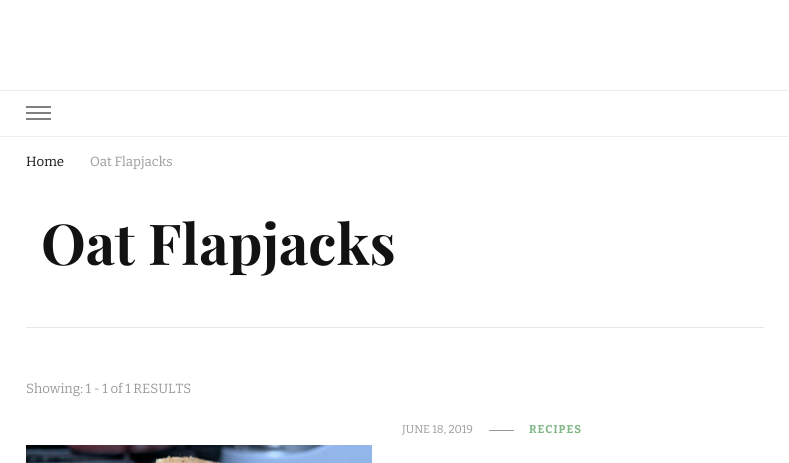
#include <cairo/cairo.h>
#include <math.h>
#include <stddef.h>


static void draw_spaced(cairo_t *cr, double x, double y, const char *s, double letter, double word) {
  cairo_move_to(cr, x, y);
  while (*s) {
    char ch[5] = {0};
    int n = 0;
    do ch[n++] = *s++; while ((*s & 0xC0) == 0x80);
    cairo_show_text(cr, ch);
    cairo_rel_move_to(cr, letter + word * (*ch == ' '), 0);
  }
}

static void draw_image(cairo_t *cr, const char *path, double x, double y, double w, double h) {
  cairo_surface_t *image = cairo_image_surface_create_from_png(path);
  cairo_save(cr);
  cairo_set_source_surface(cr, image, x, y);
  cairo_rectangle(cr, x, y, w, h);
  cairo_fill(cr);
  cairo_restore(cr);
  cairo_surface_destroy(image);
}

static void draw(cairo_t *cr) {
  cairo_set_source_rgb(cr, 1, 1, 1);
  cairo_paint(cr);
  cairo_set_source_rgb(cr, 237 / 255.0, 237 / 255.0, 237 / 255.0);
  cairo_rectangle(cr, 0, 90, 789, 1);
  cairo_fill(cr);
  cairo_rectangle(cr, 0, 136, 789, 1);
  cairo_fill(cr);
  cairo_set_source_rgb(cr, 128 / 255.0, 128 / 255.0, 128 / 255.0);
  cairo_rectangle(cr, 26, 106, 25, 2);
  cairo_fill(cr);
  cairo_rectangle(cr, 26, 112, 25, 2);
  cairo_fill(cr);
  cairo_rectangle(cr, 26, 118, 25, 2);
  cairo_fill(cr);
  cairo_set_source_rgb(cr, 230 / 255.0, 230 / 255.0, 230 / 255.0);
  cairo_rectangle(cr, 26, 327, 738, 1);
  cairo_fill(cr);
  cairo_set_source_rgb(cr, 153 / 255.0, 153 / 255.0, 153 / 255.0);
  cairo_rectangle(cr, 489, 430, 25, 1);
  cairo_fill(cr);
  draw_image(cr, "images/1.png", 26, 445, 346, 18);
  cairo_select_font_face(cr, "Bitter", CAIRO_FONT_SLANT_NORMAL, CAIRO_FONT_WEIGHT_NORMAL);
  cairo_set_font_size(cr, 13.25);
  cairo_set_source_rgb(cr, 18 / 255.0, 18 / 255.0, 18 / 255.0);
  cairo_move_to(cr, 26, 166);
  cairo_show_text(cr, "Home");
  cairo_set_source_rgb(cr, 153 / 255.0, 153 / 255.0, 153 / 255.0);
  cairo_move_to(cr, 90, 166);
  cairo_show_text(cr, "Oat Flapjacks");
  cairo_select_font_face(cr, "Playfair Display", CAIRO_FONT_SLANT_NORMAL, CAIRO_FONT_WEIGHT_BOLD);
  cairo_set_font_size(cr, 56.5);
  cairo_set_source_rgb(cr, 18 / 255.0, 18 / 255.0, 18 / 255.0);
  cairo_move_to(cr, 41, 265);
  cairo_show_text(cr, "Oat Flapjacks");
  cairo_select_font_face(cr, "Bitter", CAIRO_FONT_SLANT_NORMAL, CAIRO_FONT_WEIGHT_NORMAL);
  cairo_set_font_size(cr, 13.25);
  cairo_set_source_rgb(cr, 153 / 255.0, 153 / 255.0, 153 / 255.0);
  cairo_move_to(cr, 26, 393);
  cairo_show_text(cr, "Showing: 1 - 1 of 1 RESULTS");
  cairo_set_font_size(cr, 11.25);
  cairo_move_to(cr, 402, 433);
  cairo_show_text(cr, "JUNE 18, 2019");
  cairo_select_font_face(cr, "Bitter", CAIRO_FONT_SLANT_NORMAL, CAIRO_FONT_WEIGHT_BOLD);
  cairo_set_source_rgb(cr, 128 / 255.0, 183 / 255.0, 132 / 255.0);
  draw_spaced(cr, 529, 433, "RECIPES", 1, 0);
}

int main(void) {
  cairo_surface_t *surface = cairo_image_surface_create(CAIRO_FORMAT_RGB24, 789, 463);
  cairo_t *cr = cairo_create(surface);
  cairo_font_options_t *options = cairo_font_options_create();
  cairo_font_options_set_hint_metrics(options, CAIRO_HINT_METRICS_OFF);
  cairo_font_options_set_hint_style(options, CAIRO_HINT_STYLE_NONE);
  cairo_set_font_options(cr, options);
  cairo_set_miter_limit(cr, 4);
  draw(cr);
  cairo_surface_write_to_png(surface, "out.png");
  cairo_font_options_destroy(options);
  cairo_destroy(cr);
  cairo_surface_destroy(surface);
  return 0;
}
